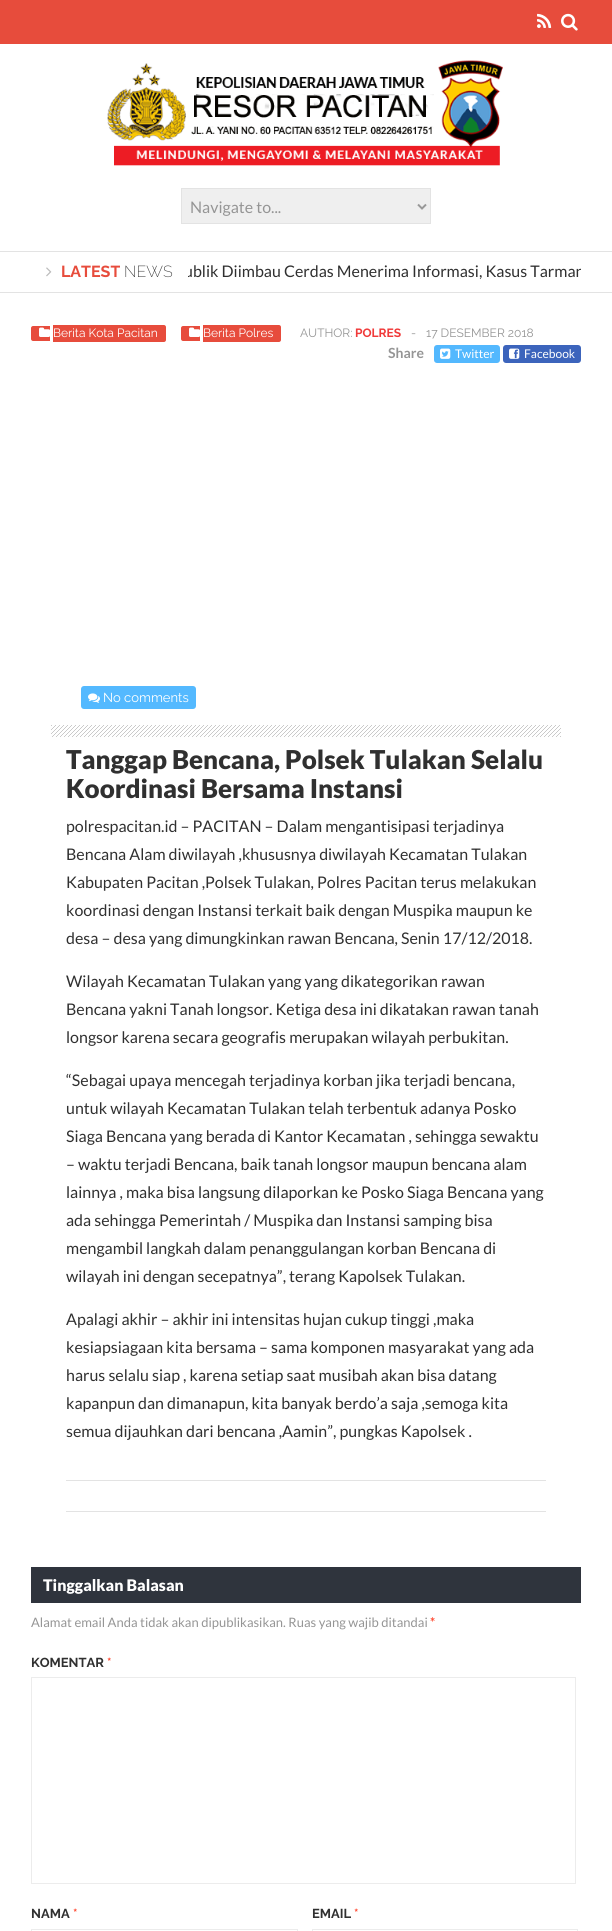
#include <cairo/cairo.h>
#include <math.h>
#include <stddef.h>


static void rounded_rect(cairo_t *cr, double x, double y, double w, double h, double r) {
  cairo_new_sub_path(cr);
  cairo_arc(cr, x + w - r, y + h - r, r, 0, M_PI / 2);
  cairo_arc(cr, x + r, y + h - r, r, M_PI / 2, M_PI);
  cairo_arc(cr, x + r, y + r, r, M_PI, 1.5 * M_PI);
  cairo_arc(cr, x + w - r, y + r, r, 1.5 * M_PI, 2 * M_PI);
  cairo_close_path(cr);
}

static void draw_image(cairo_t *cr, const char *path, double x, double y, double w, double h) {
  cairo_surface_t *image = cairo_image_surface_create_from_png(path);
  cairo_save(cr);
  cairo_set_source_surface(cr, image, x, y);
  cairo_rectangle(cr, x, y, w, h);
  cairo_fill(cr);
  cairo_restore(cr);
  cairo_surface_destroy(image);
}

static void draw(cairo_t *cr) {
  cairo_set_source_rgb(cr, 1, 1, 1);
  cairo_paint(cr);
  cairo_set_source_rgb(cr, 231 / 255.0, 76 / 255.0, 60 / 255.0);
  cairo_rectangle(cr, 0, 0, 612, 44);
  cairo_fill(cr);
  draw_image(cr, "images/1.png", 537, 13, 15, 15);
  draw_image(cr, "images/2.png", 561, 13, 17, 18);
  draw_image(cr, "images/3.png", 107, 60, 396, 106);
  cairo_set_source_rgb(cr, 239 / 255.0, 239 / 255.0, 239 / 255.0);
  cairo_rectangle(cr, 181.5, 188.5, 249, 35);
  cairo_fill_preserve(cr);
  cairo_set_source_rgb(cr, 227 / 255.0, 227 / 255.0, 227 / 255.0);
  cairo_set_line_width(cr, 1);
  cairo_stroke(cr);
  cairo_new_path(cr);
  cairo_move_to(cr, 418, 204.5);
  cairo_line_to(cr, 422, 208.5);
  cairo_line_to(cr, 426, 204.5);
  cairo_set_source_rgb(cr, 153 / 255.0, 153 / 255.0, 153 / 255.0);
  cairo_set_line_width(cr, 2);
  cairo_stroke(cr);
  cairo_set_source_rgb(cr, 227 / 255.0, 227 / 255.0, 227 / 255.0);
  cairo_rectangle(cr, 0, 251, 612, 1);
  cairo_fill(cr);
  cairo_rectangle(cr, 0, 292, 612, 1);
  cairo_fill(cr);
  draw_image(cr, "images/4.png", 46, 267, 6, 10);
  cairo_set_source_rgb(cr, 231 / 255.0, 76 / 255.0, 60 / 255.0);
  cairo_new_path(cr);
  cairo_move_to(cr, 33, 326);
  cairo_line_to(cr, 50, 326);
  cairo_line_to(cr, 50, 341);
  cairo_line_to(cr, 33, 341);
  cairo_curve_to(cr, 32, 341, 31, 340, 31, 339);
  cairo_line_to(cr, 31, 328);
  cairo_curve_to(cr, 31, 327, 32, 326, 33, 326);
  cairo_close_path(cr);
  cairo_fill(cr);
  cairo_new_path(cr);
  cairo_move_to(cr, 53, 325);
  cairo_line_to(cr, 164, 325);
  cairo_curve_to(cr, 165, 325, 166, 326, 166, 327);
  cairo_line_to(cr, 166, 340);
  cairo_curve_to(cr, 166, 341, 165, 342, 164, 342);
  cairo_line_to(cr, 53, 342);
  cairo_close_path(cr);
  cairo_fill(cr);
  draw_image(cr, "images/5.png", 39, 327, 11, 10);
  cairo_new_path(cr);
  cairo_move_to(cr, 183, 326);
  cairo_line_to(cr, 200, 326);
  cairo_line_to(cr, 200, 341);
  cairo_line_to(cr, 183, 341);
  cairo_curve_to(cr, 182, 341, 181, 340, 181, 339);
  cairo_line_to(cr, 181, 328);
  cairo_curve_to(cr, 181, 327, 182, 326, 183, 326);
  cairo_close_path(cr);
  cairo_fill(cr);
  cairo_new_path(cr);
  cairo_move_to(cr, 203, 325);
  cairo_line_to(cr, 279, 325);
  cairo_curve_to(cr, 280, 325, 281, 326, 281, 327);
  cairo_line_to(cr, 281, 340);
  cairo_curve_to(cr, 281, 341, 280, 342, 279, 342);
  cairo_line_to(cr, 203, 342);
  cairo_close_path(cr);
  cairo_fill(cr);
  draw_image(cr, "images/5.png", 189, 327, 11, 10);
  cairo_set_source_rgb(cr, 83 / 255.0, 184 / 255.0, 254 / 255.0);
  rounded_rect(cr, 434, 345, 66, 18, 3);
  cairo_fill(cr);
  draw_image(cr, "images/6.png", 440, 348, 11, 11);
  cairo_set_source_rgb(cr, 60 / 255.0, 100 / 255.0, 188 / 255.0);
  rounded_rect(cr, 503, 345, 78, 18, 3);
  cairo_fill(cr);
  draw_image(cr, "images/7.png", 509, 348, 11, 11);
  cairo_set_source_rgb(cr, 84 / 255.0, 185 / 255.0, 1);
  rounded_rect(cr, 81, 686, 115, 23, 3);
  cairo_fill(cr);
  draw_image(cr, "images/8.png", 88, 693, 12, 10);
  draw_image(cr, "images/9.png", 51, 725, 510, 12);
  cairo_set_source_rgb(cr, 227 / 255.0, 227 / 255.0, 227 / 255.0);
  cairo_rectangle(cr, 66, 1480, 480, 1);
  cairo_fill(cr);
  cairo_rectangle(cr, 66, 1511, 480, 1);
  cairo_fill(cr);
  cairo_set_source_rgb(cr, 47 / 255.0, 52 / 255.0, 61 / 255.0);
  cairo_rectangle(cr, 31, 1567, 550, 36);
  cairo_fill(cr);
  cairo_rectangle(cr, 31.5, 1677.5, 544, 206);
  cairo_set_source_rgb(cr, 236 / 255.0, 236 / 255.0, 236 / 255.0);
  cairo_set_line_width(cr, 1);
  cairo_stroke(cr);
  cairo_rectangle(cr, 31.5, 1929.5, 266, 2);
  cairo_stroke(cr);
  cairo_rectangle(cr, 312.5, 1929.5, 265, 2);
  cairo_stroke(cr);
  cairo_select_font_face(cr, "Lato", CAIRO_FONT_SLANT_NORMAL, CAIRO_FONT_WEIGHT_NORMAL);
  cairo_set_font_size(cr, 16);
  cairo_set_source_rgb(cr, 149 / 255.0, 149 / 255.0, 149 / 255.0);
  cairo_move_to(cr, 190, 213);
  cairo_show_text(cr, "Navigate to...");
  cairo_select_font_face(cr, "Raleway", CAIRO_FONT_SLANT_NORMAL, CAIRO_FONT_WEIGHT_BOLD);
  cairo_set_source_rgb(cr, 231 / 255.0, 76 / 255.0, 60 / 255.0);
  cairo_move_to(cr, 61, 277);
  cairo_show_text(cr, "LATEST");
  cairo_select_font_face(cr, "Raleway ExtraLight", CAIRO_FONT_SLANT_NORMAL, CAIRO_FONT_WEIGHT_NORMAL);
  cairo_set_source_rgb(cr, 48 / 255.0, 48 / 255.0, 48 / 255.0);
  cairo_move_to(cr, 124, 277);
  cairo_show_text(cr, "NEWS");
  cairo_save(cr);
  cairo_rectangle(cr, 188, 262, 393, 20);
  cairo_clip(cr);
  cairo_select_font_face(cr, "Lato", CAIRO_FONT_SLANT_NORMAL, CAIRO_FONT_WEIGHT_NORMAL);
  cairo_move_to(cr, 184, 277);
  cairo_show_text(cr, "ublik Diimbau Cerdas Menerima Informasi, Kasus Tarman");
  cairo_restore(cr);
  cairo_select_font_face(cr, "Raleway", CAIRO_FONT_SLANT_NORMAL, CAIRO_FONT_WEIGHT_NORMAL);
  cairo_set_font_size(cr, 12);
  cairo_set_source_rgb(cr, 1, 1, 1);
  cairo_move_to(cr, 53, 337);
  cairo_show_text(cr, "Berita Kota Pacitan");
  cairo_move_to(cr, 203, 337);
  cairo_show_text(cr, "Berita Polres");
  cairo_set_source_rgb(cr, 149 / 255.0, 149 / 255.0, 149 / 255.0);
  cairo_move_to(cr, 300, 337);
  cairo_show_text(cr, "AUTHOR:");
  cairo_select_font_face(cr, "Raleway", CAIRO_FONT_SLANT_NORMAL, CAIRO_FONT_WEIGHT_BOLD);
  cairo_set_source_rgb(cr, 240 / 255.0, 58 / 255.0, 58 / 255.0);
  cairo_move_to(cr, 355, 337);
  cairo_show_text(cr, "POLRES");
  cairo_select_font_face(cr, "Raleway", CAIRO_FONT_SLANT_NORMAL, CAIRO_FONT_WEIGHT_NORMAL);
  cairo_set_source_rgb(cr, 149 / 255.0, 149 / 255.0, 149 / 255.0);
  cairo_move_to(cr, 411, 337);
  cairo_show_text(cr, "-");
  cairo_move_to(cr, 426, 337);
  cairo_show_text(cr, "17 DESEMBER 2018");
  cairo_select_font_face(cr, "Lato", CAIRO_FONT_SLANT_NORMAL, CAIRO_FONT_WEIGHT_BOLD);
  cairo_set_font_size(cr, 14);
  cairo_move_to(cr, 388, 358);
  cairo_show_text(cr, "Share");
  cairo_select_font_face(cr, "Lato", CAIRO_FONT_SLANT_NORMAL, CAIRO_FONT_WEIGHT_NORMAL);
  cairo_set_font_size(cr, 12);
  cairo_set_source_rgb(cr, 1, 1, 1);
  cairo_move_to(cr, 455, 358);
  cairo_show_text(cr, "Twitter");
  cairo_move_to(cr, 524, 358);
  cairo_show_text(cr, "Facebook");
  cairo_select_font_face(cr, "Raleway", CAIRO_FONT_SLANT_NORMAL, CAIRO_FONT_WEIGHT_NORMAL);
  cairo_set_font_size(cr, 13);
  cairo_move_to(cr, 103, 702);
  cairo_show_text(cr, "No comments");
  cairo_select_font_face(cr, "Lato Black", CAIRO_FONT_SLANT_NORMAL, CAIRO_FONT_WEIGHT_NORMAL);
  cairo_set_font_size(cr, 26);
  cairo_set_source_rgb(cr, 48 / 255.0, 48 / 255.0, 48 / 255.0);
  cairo_move_to(cr, 66, 769);
  cairo_show_text(cr, "Tanggap Bencana, Polsek Tulakan Selalu");
  cairo_move_to(cr, 66, 798);
  cairo_show_text(cr, "Koordinasi Bersama Instansi");
  cairo_select_font_face(cr, "Lato", CAIRO_FONT_SLANT_NORMAL, CAIRO_FONT_WEIGHT_NORMAL);
  cairo_set_font_size(cr, 16);
  cairo_move_to(cr, 66, 832);
  cairo_show_text(cr, "polrespacitan.id – PACITAN – Dalam mengantisipasi terjadinya");
  cairo_move_to(cr, 66, 860);
  cairo_show_text(cr, "Bencana Alam diwilayah ,khususnya diwilayah Kecamatan Tulakan");
  cairo_move_to(cr, 66, 888);
  cairo_show_text(cr, "Kabupaten Pacitan ,Polsek Tulakan, Polres Pacitan terus melakukan");
  cairo_move_to(cr, 66, 916);
  cairo_show_text(cr, "koordinasi dengan Instansi terkait baik dengan Muspika maupun ke");
  cairo_move_to(cr, 66, 944);
  cairo_show_text(cr, "desa – desa yang dimungkinkan rawan Bencana, Senin 17/12/2018.");
  cairo_move_to(cr, 66, 987);
  cairo_show_text(cr, "Wilayah Kecamatan Tulakan yang yang dikategorikan rawan");
  cairo_move_to(cr, 66, 1015);
  cairo_show_text(cr, "Bencana yakni Tanah longsor. Ketiga desa ini dikatakan rawan tanah");
  cairo_move_to(cr, 66, 1043);
  cairo_show_text(cr, "longsor karena secara geografis merupakan wilayah perbukitan.");
  cairo_move_to(cr, 66, 1086);
  cairo_show_text(cr, "“Sebagai upaya mencegah terjadinya korban jika terjadi bencana,");
  cairo_move_to(cr, 66, 1114);
  cairo_show_text(cr, "untuk wilayah Kecamatan Tulakan telah terbentuk adanya Posko");
  cairo_move_to(cr, 66, 1142);
  cairo_show_text(cr, "Siaga Bencana yang berada di Kantor Kecamatan , sehingga sewaktu");
  cairo_move_to(cr, 66, 1170);
  cairo_show_text(cr, "– waktu terjadi Bencana, baik tanah longsor maupun bencana alam");
  cairo_move_to(cr, 66, 1198);
  cairo_show_text(cr, "lainnya , maka bisa langsung dilaporkan ke Posko Siaga Bencana yang");
  cairo_move_to(cr, 66, 1226);
  cairo_show_text(cr, "ada sehingga Pemerintah / Muspika dan Instansi samping bisa");
  cairo_move_to(cr, 66, 1254);
  cairo_show_text(cr, "mengambil langkah dalam penanggulangan korban Bencana di");
  cairo_move_to(cr, 66, 1282);
  cairo_show_text(cr, "wilayah ini dengan secepatnya”, terang Kapolsek Tulakan.");
  cairo_move_to(cr, 66, 1325);
  cairo_show_text(cr, "Apalagi akhir – akhir ini intensitas hujan cukup tinggi ,maka");
  cairo_move_to(cr, 66, 1353);
  cairo_show_text(cr, "kesiapsiagaan kita bersama – sama komponen masyarakat yang ada");
  cairo_move_to(cr, 66, 1381);
  cairo_show_text(cr, "harus selalu siap , karena setiap saat musibah akan bisa datang");
  cairo_move_to(cr, 66, 1409);
  cairo_show_text(cr, "kapanpun dan dimanapun, kita banyak berdo’a saja ,semoga kita");
  cairo_move_to(cr, 66, 1437);
  cairo_show_text(cr, "semua dijauhkan dari bencana ,Aamin”, pungkas Kapolsek .");
  cairo_select_font_face(cr, "Lato Black", CAIRO_FONT_SLANT_NORMAL, CAIRO_FONT_WEIGHT_NORMAL);
  cairo_set_source_rgb(cr, 1, 1, 1);
  cairo_move_to(cr, 43, 1591);
  cairo_show_text(cr, "Tinggalkan Balasan");
  cairo_select_font_face(cr, "Lato", CAIRO_FONT_SLANT_NORMAL, CAIRO_FONT_WEIGHT_NORMAL);
  cairo_set_font_size(cr, 13);
  cairo_set_source_rgb(cr, 149 / 255.0, 149 / 255.0, 149 / 255.0);
  cairo_move_to(cr, 31, 1627);
  cairo_show_text(cr, "Alamat email Anda tidak akan dipublikasikan. Ruas yang wajib ditandai");
  cairo_select_font_face(cr, "Lato", CAIRO_FONT_SLANT_NORMAL, CAIRO_FONT_WEIGHT_BOLD);
  cairo_set_source_rgb(cr, 1, 75 / 255.0, 51 / 255.0);
  cairo_move_to(cr, 430, 1627);
  cairo_show_text(cr, "*");
  cairo_select_font_face(cr, "Raleway", CAIRO_FONT_SLANT_NORMAL, CAIRO_FONT_WEIGHT_BOLD);
  cairo_set_source_rgb(cr, 48 / 255.0, 48 / 255.0, 48 / 255.0);
  cairo_move_to(cr, 31, 1667);
  cairo_show_text(cr, "KOMENTAR");
  cairo_set_source_rgb(cr, 1, 75 / 255.0, 51 / 255.0);
  cairo_move_to(cr, 107, 1667);
  cairo_show_text(cr, "*");
  cairo_set_source_rgb(cr, 48 / 255.0, 48 / 255.0, 48 / 255.0);
  cairo_move_to(cr, 31, 1918);
  cairo_show_text(cr, "NAMA");
  cairo_set_source_rgb(cr, 1, 75 / 255.0, 51 / 255.0);
  cairo_move_to(cr, 73, 1918);
  cairo_show_text(cr, "*");
  cairo_set_source_rgb(cr, 48 / 255.0, 48 / 255.0, 48 / 255.0);
  cairo_move_to(cr, 312, 1918);
  cairo_show_text(cr, "EMAIL");
  cairo_set_source_rgb(cr, 1, 75 / 255.0, 51 / 255.0);
  cairo_move_to(cr, 354, 1918);
  cairo_show_text(cr, "*");
}

int main(void) {
  cairo_surface_t *surface = cairo_image_surface_create(CAIRO_FORMAT_RGB24, 612, 1931);
  cairo_t *cr = cairo_create(surface);
  cairo_font_options_t *options = cairo_font_options_create();
  cairo_font_options_set_hint_metrics(options, CAIRO_HINT_METRICS_OFF);
  cairo_font_options_set_hint_style(options, CAIRO_HINT_STYLE_NONE);
  cairo_set_font_options(cr, options);
  cairo_set_miter_limit(cr, 4);
  draw(cr);
  cairo_surface_write_to_png(surface, "out.png");
  cairo_font_options_destroy(options);
  cairo_destroy(cr);
  cairo_surface_destroy(surface);
  return 0;
}
